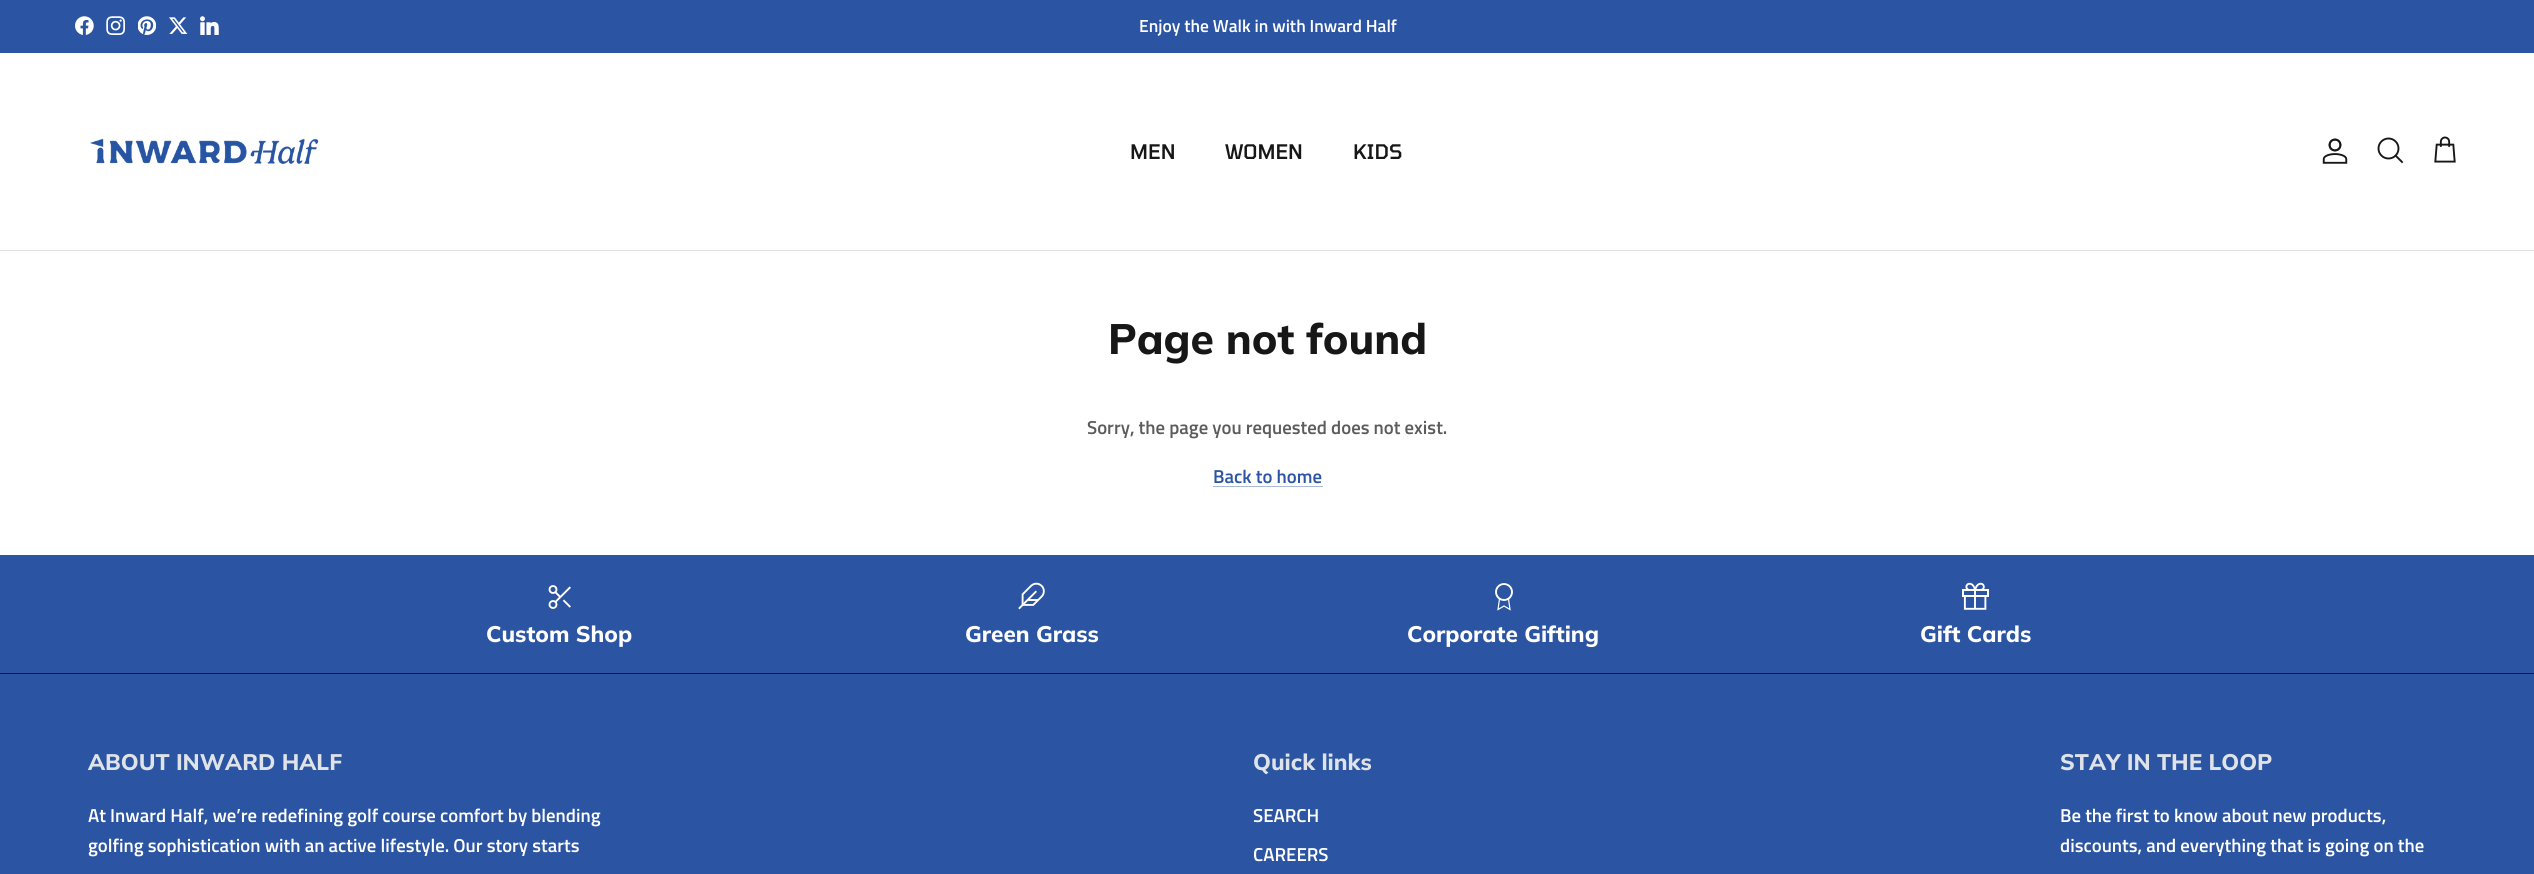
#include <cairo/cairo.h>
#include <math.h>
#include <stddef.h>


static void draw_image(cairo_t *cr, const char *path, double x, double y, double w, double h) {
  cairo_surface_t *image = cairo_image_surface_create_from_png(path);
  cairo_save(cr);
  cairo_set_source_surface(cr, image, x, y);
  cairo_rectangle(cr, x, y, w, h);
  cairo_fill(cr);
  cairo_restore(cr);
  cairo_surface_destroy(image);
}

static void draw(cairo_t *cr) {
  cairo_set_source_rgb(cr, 1, 1, 1);
  cairo_paint(cr);
  cairo_set_source_rgb(cr, 43 / 255.0, 84 / 255.0, 162 / 255.0);
  cairo_rectangle(cr, 0, 0, 2534, 53);
  cairo_fill(cr);
  draw_image(cr, "images/1.png", 75, 16, 19, 19);
  draw_image(cr, "images/2.png", 106, 16, 19, 19);
  draw_image(cr, "images/3.png", 138, 16, 18, 19);
  draw_image(cr, "images/4.png", 169, 17, 19, 17);
  draw_image(cr, "images/5.png", 200, 16, 19, 19);
  cairo_set_source_rgb(cr, 223 / 255.0, 227 / 255.0, 232 / 255.0);
  cairo_rectangle(cr, 0, 250, 2534, 1);
  cairo_fill(cr);
  draw_image(cr, "images/6.png", 90, 138, 229, 26);
  draw_image(cr, "images/7.png", 2322, 138, 26, 26);
  cairo_arc(cr, 2388.5, 148.5, 10, 0, 2 * M_PI);
  cairo_set_source_rgb(cr, 23 / 255.0, 23 / 255.0, 23 / 255.0);
  cairo_set_line_width(cr, 1.9);
  cairo_stroke(cr);
  cairo_new_path(cr);
  cairo_move_to(cr, 2396, 156);
  cairo_line_to(cr, 2402, 162);
  cairo_set_line_cap(cr, CAIRO_LINE_CAP_SQUARE);
  cairo_stroke(cr);
  draw_image(cr, "images/8.png", 2434, 136, 22, 27);
  cairo_set_source_rgb(cr, 170 / 255.0, 187 / 255.0, 218 / 255.0);
  cairo_rectangle(cr, 1213, 486, 110, 1);
  cairo_fill(cr);
  cairo_set_source_rgb(cr, 43 / 255.0, 84 / 255.0, 162 / 255.0);
  cairo_rectangle(cr, 0, 555, 2534, 118);
  cairo_fill(cr);
  draw_image(cr, "images/9.png", 548, 585, 23, 24);
  draw_image(cr, "images/10.png", 1018, 582, 27, 28);
  cairo_arc(cr, 1504, 592, 8, 0, 2 * M_PI);
  cairo_set_source_rgb(cr, 1, 1, 1);
  cairo_set_line_cap(cr, CAIRO_LINE_CAP_BUTT);
  cairo_stroke(cr);
  cairo_new_path(cr);
  cairo_move_to(cr, 1499.5, 599);
  cairo_line_to(cr, 1498, 609.5);
  cairo_line_to(cr, 1504, 606);
  cairo_line_to(cr, 1510, 609.5);
  cairo_line_to(cr, 1508.5, 599);
  cairo_set_line_width(cr, 1.2);
  cairo_stroke(cr);
  draw_image(cr, "images/11.png", 1962, 582, 27, 28);
  cairo_set_source_rgb(cr, 43 / 255.0, 84 / 255.0, 162 / 255.0);
  cairo_rectangle(cr, 0, 674, 2534, 200);
  cairo_fill(cr);
  cairo_set_source_rgb(cr, 23 / 255.0, 23 / 255.0, 23 / 255.0);
  cairo_rectangle(cr, 0, 673, 2534, 1);
  cairo_fill(cr);
  cairo_select_font_face(cr, "Titillium Web SemiBold", CAIRO_FONT_SLANT_NORMAL, CAIRO_FONT_WEIGHT_NORMAL);
  cairo_set_font_size(cr, 17.5);
  cairo_set_source_rgb(cr, 1, 1, 1);
  cairo_move_to(cr, 1139, 32);
  cairo_show_text(cr, "Enjoy the Walk in with Inward Half");
  cairo_select_font_face(cr, "Tomorrow Medium", CAIRO_FONT_SLANT_NORMAL, CAIRO_FONT_WEIGHT_NORMAL);
  cairo_set_font_size(cr, 20);
  cairo_set_source_rgb(cr, 23 / 255.0, 23 / 255.0, 23 / 255.0);
  cairo_move_to(cr, 1130, 159);
  cairo_show_text(cr, "MEN");
  cairo_move_to(cr, 1225, 159);
  cairo_show_text(cr, "WOMEN");
  cairo_move_to(cr, 1353, 159);
  cairo_show_text(cr, "KIDS");
  cairo_select_font_face(cr, "Muli ExtraBold", CAIRO_FONT_SLANT_NORMAL, CAIRO_FONT_WEIGHT_NORMAL);
  cairo_set_font_size(cr, 42.5);
  cairo_move_to(cr, 1108, 354);
  cairo_show_text(cr, "Page not found");
  cairo_select_font_face(cr, "Titillium Web SemiBold", CAIRO_FONT_SLANT_NORMAL, CAIRO_FONT_WEIGHT_NORMAL);
  cairo_set_font_size(cr, 18.75);
  cairo_set_source_rgb(cr, 92 / 255.0, 92 / 255.0, 92 / 255.0);
  cairo_move_to(cr, 1087, 434);
  cairo_show_text(cr, "Sorry, the page you requested does not exist.");
  cairo_set_source_rgb(cr, 43 / 255.0, 84 / 255.0, 162 / 255.0);
  cairo_move_to(cr, 1213, 483);
  cairo_show_text(cr, "Back to home");
  cairo_select_font_face(cr, "Muli ExtraBold", CAIRO_FONT_SLANT_NORMAL, CAIRO_FONT_WEIGHT_NORMAL);
  cairo_set_font_size(cr, 22.5);
  cairo_set_source_rgb(cr, 1, 1, 1);
  cairo_move_to(cr, 486, 642);
  cairo_show_text(cr, "Custom Shop");
  cairo_move_to(cr, 965, 642);
  cairo_show_text(cr, "Green Grass");
  cairo_move_to(cr, 1407, 642);
  cairo_show_text(cr, "Corporate Gifting");
  cairo_move_to(cr, 1920, 642);
  cairo_show_text(cr, "Gift Cards");
  cairo_set_source_rgb(cr, 223 / 255.0, 227 / 255.0, 232 / 255.0);
  cairo_move_to(cr, 88, 770);
  cairo_show_text(cr, "ABOUT INWARD HALF");
  cairo_select_font_face(cr, "Titillium Web SemiBold", CAIRO_FONT_SLANT_NORMAL, CAIRO_FONT_WEIGHT_NORMAL);
  cairo_set_font_size(cr, 18.75);
  cairo_set_source_rgb(cr, 1, 1, 1);
  cairo_move_to(cr, 88, 822);
  cairo_show_text(cr, "At Inward Half, we’re redefining golf course comfort by blending");
  cairo_move_to(cr, 88, 852);
  cairo_show_text(cr, "golfing sophistication with an active lifestyle. Our story starts");
  cairo_select_font_face(cr, "Muli ExtraBold", CAIRO_FONT_SLANT_NORMAL, CAIRO_FONT_WEIGHT_NORMAL);
  cairo_set_font_size(cr, 22.5);
  cairo_set_source_rgb(cr, 223 / 255.0, 227 / 255.0, 232 / 255.0);
  cairo_move_to(cr, 1253, 770);
  cairo_show_text(cr, "Quick links");
  cairo_select_font_face(cr, "Titillium Web SemiBold", CAIRO_FONT_SLANT_NORMAL, CAIRO_FONT_WEIGHT_NORMAL);
  cairo_set_font_size(cr, 18.75);
  cairo_set_source_rgb(cr, 1, 1, 1);
  cairo_move_to(cr, 1253, 822);
  cairo_show_text(cr, "SEARCH");
  cairo_move_to(cr, 1253, 861);
  cairo_show_text(cr, "CAREERS");
  cairo_select_font_face(cr, "Muli ExtraBold", CAIRO_FONT_SLANT_NORMAL, CAIRO_FONT_WEIGHT_NORMAL);
  cairo_set_font_size(cr, 22.5);
  cairo_set_source_rgb(cr, 223 / 255.0, 227 / 255.0, 232 / 255.0);
  cairo_move_to(cr, 2060, 770);
  cairo_show_text(cr, "STAY IN THE LOOP");
  cairo_select_font_face(cr, "Titillium Web SemiBold", CAIRO_FONT_SLANT_NORMAL, CAIRO_FONT_WEIGHT_NORMAL);
  cairo_set_font_size(cr, 18.75);
  cairo_set_source_rgb(cr, 1, 1, 1);
  cairo_move_to(cr, 2060, 822);
  cairo_show_text(cr, "Be the first to know about new products,");
  cairo_move_to(cr, 2060, 852);
  cairo_show_text(cr, "discounts, and everything that is going on the");
}

int main(void) {
  cairo_surface_t *surface = cairo_image_surface_create(CAIRO_FORMAT_RGB24, 2534, 874);
  cairo_t *cr = cairo_create(surface);
  cairo_font_options_t *options = cairo_font_options_create();
  cairo_font_options_set_hint_metrics(options, CAIRO_HINT_METRICS_OFF);
  cairo_font_options_set_hint_style(options, CAIRO_HINT_STYLE_NONE);
  cairo_set_font_options(cr, options);
  cairo_set_miter_limit(cr, 4);
  draw(cr);
  cairo_surface_write_to_png(surface, "out.png");
  cairo_font_options_destroy(options);
  cairo_destroy(cr);
  cairo_surface_destroy(surface);
  return 0;
}
